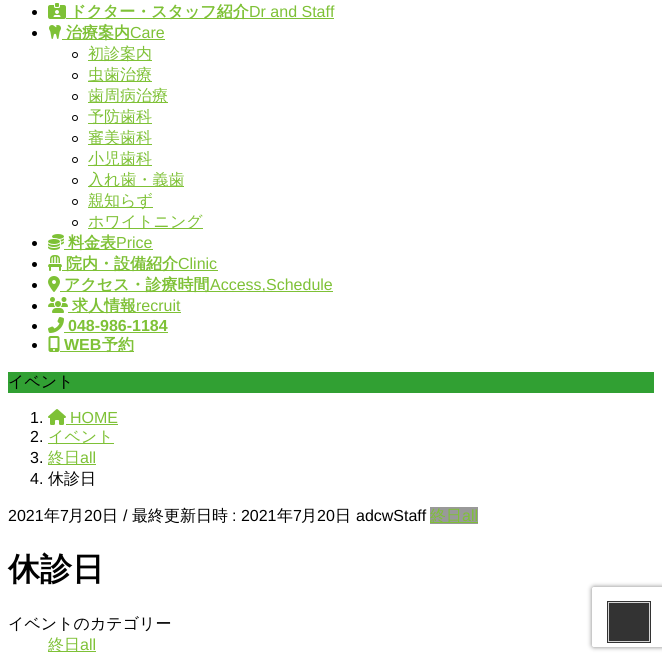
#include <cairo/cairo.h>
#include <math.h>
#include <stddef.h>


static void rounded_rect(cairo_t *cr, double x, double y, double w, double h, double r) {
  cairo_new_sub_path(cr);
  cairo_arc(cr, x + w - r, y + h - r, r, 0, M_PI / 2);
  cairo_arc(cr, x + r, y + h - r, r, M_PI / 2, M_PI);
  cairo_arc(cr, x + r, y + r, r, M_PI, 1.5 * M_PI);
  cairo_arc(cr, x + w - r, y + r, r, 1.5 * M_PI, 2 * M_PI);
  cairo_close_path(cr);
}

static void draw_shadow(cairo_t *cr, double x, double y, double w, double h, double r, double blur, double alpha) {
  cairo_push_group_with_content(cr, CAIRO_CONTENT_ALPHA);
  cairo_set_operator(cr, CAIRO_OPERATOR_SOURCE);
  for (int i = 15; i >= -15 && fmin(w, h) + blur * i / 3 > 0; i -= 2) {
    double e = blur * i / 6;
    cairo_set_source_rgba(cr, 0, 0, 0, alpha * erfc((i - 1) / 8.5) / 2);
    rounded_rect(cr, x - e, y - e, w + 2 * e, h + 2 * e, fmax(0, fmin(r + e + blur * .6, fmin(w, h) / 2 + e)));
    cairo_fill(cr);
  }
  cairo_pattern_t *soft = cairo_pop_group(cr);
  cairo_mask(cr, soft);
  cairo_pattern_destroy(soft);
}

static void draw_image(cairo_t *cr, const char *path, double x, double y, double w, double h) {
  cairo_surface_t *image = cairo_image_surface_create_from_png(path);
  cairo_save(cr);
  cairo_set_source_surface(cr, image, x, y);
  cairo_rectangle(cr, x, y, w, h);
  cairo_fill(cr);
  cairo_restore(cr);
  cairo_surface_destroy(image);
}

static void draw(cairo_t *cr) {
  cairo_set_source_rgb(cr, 1, 1, 1);
  cairo_paint(cr);
  cairo_set_source_rgb(cr, 0, 0, 0);
  cairo_arc(cr, 34.5, 12.5, 2.5, 0, 2 * M_PI);
  cairo_fill(cr);
  draw_image(cr, "images/1.png", 48, 3, 18, 16);
  cairo_set_source_rgb(cr, 126 / 255.0, 193 / 255.0, 54 / 255.0);
  cairo_rectangle(cr, 66, 18, 268, 1);
  cairo_fill(cr);
  cairo_set_source_rgb(cr, 0, 0, 0);
  cairo_arc(cr, 34.5, 33.5, 2.5, 0, 2 * M_PI);
  cairo_fill(cr);
  draw_image(cr, "images/2.png", 49, 25, 12, 14);
  cairo_set_source_rgb(cr, 126 / 255.0, 193 / 255.0, 54 / 255.0);
  cairo_rectangle(cr, 62, 39, 103, 1);
  cairo_fill(cr);
  cairo_arc(cr, 75, 55, 2.5, 0, 2 * M_PI);
  cairo_set_source_rgb(cr, 0, 0, 0);
  cairo_set_line_width(cr, 1);
  cairo_stroke(cr);
  cairo_set_source_rgb(cr, 126 / 255.0, 193 / 255.0, 54 / 255.0);
  cairo_rectangle(cr, 88, 60, 64, 1);
  cairo_fill(cr);
  cairo_arc(cr, 75, 76, 2.5, 0, 2 * M_PI);
  cairo_set_source_rgb(cr, 0, 0, 0);
  cairo_stroke(cr);
  cairo_set_source_rgb(cr, 126 / 255.0, 193 / 255.0, 54 / 255.0);
  cairo_rectangle(cr, 88, 81, 64, 1);
  cairo_fill(cr);
  cairo_arc(cr, 75, 97, 2.5, 0, 2 * M_PI);
  cairo_set_source_rgb(cr, 0, 0, 0);
  cairo_stroke(cr);
  cairo_set_source_rgb(cr, 126 / 255.0, 193 / 255.0, 54 / 255.0);
  cairo_rectangle(cr, 88, 102, 80, 1);
  cairo_fill(cr);
  cairo_arc(cr, 75, 118, 2.5, 0, 2 * M_PI);
  cairo_set_source_rgb(cr, 0, 0, 0);
  cairo_stroke(cr);
  cairo_set_source_rgb(cr, 126 / 255.0, 193 / 255.0, 54 / 255.0);
  cairo_rectangle(cr, 88, 123, 64, 1);
  cairo_fill(cr);
  cairo_arc(cr, 75, 139, 2.5, 0, 2 * M_PI);
  cairo_set_source_rgb(cr, 0, 0, 0);
  cairo_stroke(cr);
  cairo_set_source_rgb(cr, 126 / 255.0, 193 / 255.0, 54 / 255.0);
  cairo_rectangle(cr, 88, 144, 64, 1);
  cairo_fill(cr);
  cairo_arc(cr, 75, 160, 2.5, 0, 2 * M_PI);
  cairo_set_source_rgb(cr, 0, 0, 0);
  cairo_stroke(cr);
  cairo_set_source_rgb(cr, 126 / 255.0, 193 / 255.0, 54 / 255.0);
  cairo_rectangle(cr, 88, 165, 64, 1);
  cairo_fill(cr);
  cairo_arc(cr, 75, 181, 2.5, 0, 2 * M_PI);
  cairo_set_source_rgb(cr, 0, 0, 0);
  cairo_stroke(cr);
  cairo_set_source_rgb(cr, 126 / 255.0, 193 / 255.0, 54 / 255.0);
  cairo_rectangle(cr, 88, 186, 96, 1);
  cairo_fill(cr);
  cairo_arc(cr, 75, 202, 2.5, 0, 2 * M_PI);
  cairo_set_source_rgb(cr, 0, 0, 0);
  cairo_stroke(cr);
  cairo_set_source_rgb(cr, 126 / 255.0, 193 / 255.0, 54 / 255.0);
  cairo_rectangle(cr, 88, 207, 65, 1);
  cairo_fill(cr);
  cairo_arc(cr, 75, 223, 2.5, 0, 2 * M_PI);
  cairo_set_source_rgb(cr, 0, 0, 0);
  cairo_stroke(cr);
  cairo_set_source_rgb(cr, 126 / 255.0, 193 / 255.0, 54 / 255.0);
  cairo_rectangle(cr, 88, 228, 115, 1);
  cairo_fill(cr);
  cairo_set_source_rgb(cr, 0, 0, 0);
  cairo_arc(cr, 34.5, 243.5, 2.5, 0, 2 * M_PI);
  cairo_fill(cr);
  draw_image(cr, "images/3.png", 48, 234, 16, 16);
  cairo_set_source_rgb(cr, 126 / 255.0, 193 / 255.0, 54 / 255.0);
  cairo_rectangle(cr, 64, 249, 89, 1);
  cairo_fill(cr);
  cairo_set_source_rgb(cr, 0, 0, 0);
  cairo_arc(cr, 34.5, 264.5, 2.5, 0, 2 * M_PI);
  cairo_fill(cr);
  draw_image(cr, "images/4.png", 48, 255, 14, 16);
  cairo_set_source_rgb(cr, 126 / 255.0, 193 / 255.0, 54 / 255.0);
  cairo_rectangle(cr, 62, 270, 156, 1);
  cairo_fill(cr);
  cairo_set_source_rgb(cr, 0, 0, 0);
  cairo_arc(cr, 34.5, 285.5, 2.5, 0, 2 * M_PI);
  cairo_fill(cr);
  draw_image(cr, "images/5.png", 48, 276, 12, 16);
  cairo_set_source_rgb(cr, 126 / 255.0, 193 / 255.0, 54 / 255.0);
  cairo_rectangle(cr, 60, 291, 273, 1);
  cairo_fill(cr);
  cairo_set_source_rgb(cr, 0, 0, 0);
  cairo_arc(cr, 34.5, 306.5, 2.5, 0, 2 * M_PI);
  cairo_fill(cr);
  draw_image(cr, "images/6.png", 48, 297, 20, 16);
  cairo_set_source_rgb(cr, 126 / 255.0, 193 / 255.0, 54 / 255.0);
  cairo_rectangle(cr, 68, 312, 113, 1);
  cairo_fill(cr);
  cairo_set_source_rgb(cr, 0, 0, 0);
  cairo_arc(cr, 34.5, 326.5, 2.5, 0, 2 * M_PI);
  cairo_fill(cr);
  draw_image(cr, "images/7.png", 48, 317, 16, 16);
  cairo_set_source_rgb(cr, 126 / 255.0, 193 / 255.0, 54 / 255.0);
  cairo_rectangle(cr, 64, 332, 104, 1);
  cairo_fill(cr);
  cairo_set_source_rgb(cr, 0, 0, 0);
  cairo_arc(cr, 34.5, 345.5, 2.5, 0, 2 * M_PI);
  cairo_fill(cr);
  draw_image(cr, "images/8.png", 48, 336, 12, 16);
  cairo_set_source_rgb(cr, 126 / 255.0, 193 / 255.0, 54 / 255.0);
  cairo_rectangle(cr, 60, 351, 74, 1);
  cairo_fill(cr);
  cairo_set_source_rgb(cr, 49 / 255.0, 160 / 255.0, 51 / 255.0);
  cairo_rectangle(cr, 8, 372, 646, 21);
  cairo_fill(cr);
  draw_image(cr, "images/9.png", 48, 409, 18, 16);
  cairo_set_source_rgb(cr, 126 / 255.0, 193 / 255.0, 54 / 255.0);
  cairo_rectangle(cr, 66, 424, 52, 1);
  cairo_fill(cr);
  cairo_rectangle(cr, 48, 443, 66, 1);
  cairo_fill(cr);
  cairo_rectangle(cr, 48, 464, 48, 1);
  cairo_fill(cr);
  cairo_set_source_rgb(cr, 153 / 255.0, 153 / 255.0, 153 / 255.0);
  cairo_rectangle(cr, 430, 507, 48, 17);
  cairo_fill(cr);
  cairo_set_source_rgb(cr, 126 / 255.0, 193 / 255.0, 54 / 255.0);
  cairo_rectangle(cr, 430, 522, 48, 1);
  cairo_fill(cr);
  cairo_rectangle(cr, 48, 651, 48, 1);
  cairo_fill(cr);
  cairo_save(cr);
  cairo_set_fill_rule(cr, CAIRO_FILL_RULE_EVEN_ODD);
  cairo_new_path(cr);
  cairo_move_to(cr, 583, 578);
  cairo_line_to(cr, 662, 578);
  cairo_line_to(cr, 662, 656);
  cairo_line_to(cr, 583, 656);
  cairo_close_path(cr);
  cairo_move_to(cr, 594, 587);
  cairo_line_to(cr, 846, 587);
  cairo_curve_to(cr, 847, 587, 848, 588, 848, 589);
  cairo_line_to(cr, 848, 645);
  cairo_curve_to(cr, 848, 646, 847, 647, 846, 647);
  cairo_line_to(cr, 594, 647);
  cairo_curve_to(cr, 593, 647, 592, 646, 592, 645);
  cairo_line_to(cr, 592, 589);
  cairo_curve_to(cr, 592, 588, 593, 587, 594, 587);
  cairo_close_path(cr);
  cairo_clip(cr);
  cairo_set_source_rgb(cr, 128 / 255.0, 128 / 255.0, 128 / 255.0);
  draw_shadow(cr, 592, 587, 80, 60, 2, 2.5, 1);
  cairo_restore(cr);
  cairo_rectangle(cr, 608, 602, 42, 40);
  cairo_set_source_rgb(cr, 51 / 255.0, 51 / 255.0, 51 / 255.0);
  cairo_set_line_width(cr, 2);
  cairo_stroke(cr);
  cairo_rectangle(cr, 608.5, 602.5, 41, 39);
  cairo_set_source_rgb(cr, 214 / 255.0, 214 / 255.0, 214 / 255.0);
  cairo_set_line_width(cr, 1);
  cairo_stroke(cr);
  cairo_set_source_rgb(cr, 51 / 255.0, 51 / 255.0, 51 / 255.0);
  cairo_rectangle(cr, 609, 603, 40, 38);
  cairo_fill(cr);
  cairo_select_font_face(cr, "WenQuanYi Zen Hei", CAIRO_FONT_SLANT_NORMAL, CAIRO_FONT_WEIGHT_BOLD);
  cairo_set_font_size(cr, 16);
  cairo_set_source_rgb(cr, 126 / 255.0, 193 / 255.0, 54 / 255.0);
  cairo_move_to(cr, 70, 17);
  cairo_show_text(cr, "ドクター・スタッフ紹介");
  cairo_select_font_face(cr, "Liberation Sans", CAIRO_FONT_SLANT_NORMAL, CAIRO_FONT_WEIGHT_NORMAL);
  cairo_move_to(cr, 249, 17);
  cairo_show_text(cr, "Dr and Staff");
  cairo_select_font_face(cr, "WenQuanYi Zen Hei", CAIRO_FONT_SLANT_NORMAL, CAIRO_FONT_WEIGHT_BOLD);
  cairo_move_to(cr, 66, 38);
  cairo_show_text(cr, "治療案内");
  cairo_select_font_face(cr, "Liberation Sans", CAIRO_FONT_SLANT_NORMAL, CAIRO_FONT_WEIGHT_NORMAL);
  cairo_move_to(cr, 130, 38);
  cairo_show_text(cr, "Care");
  cairo_select_font_face(cr, "WenQuanYi Zen Hei Medium", CAIRO_FONT_SLANT_NORMAL, CAIRO_FONT_WEIGHT_NORMAL);
  cairo_move_to(cr, 88, 59);
  cairo_show_text(cr, "初診案内");
  cairo_move_to(cr, 88, 80);
  cairo_show_text(cr, "虫歯治療");
  cairo_move_to(cr, 88, 101);
  cairo_show_text(cr, "歯周病治療");
  cairo_move_to(cr, 88, 122);
  cairo_show_text(cr, "予防歯科");
  cairo_move_to(cr, 88, 143);
  cairo_show_text(cr, "審美歯科");
  cairo_move_to(cr, 88, 164);
  cairo_show_text(cr, "小児歯科");
  cairo_move_to(cr, 88, 185);
  cairo_show_text(cr, "入れ歯・義歯");
  cairo_move_to(cr, 88, 206);
  cairo_show_text(cr, "親知らず");
  cairo_move_to(cr, 88, 227);
  cairo_show_text(cr, "ホワイトニング");
  cairo_select_font_face(cr, "WenQuanYi Zen Hei", CAIRO_FONT_SLANT_NORMAL, CAIRO_FONT_WEIGHT_BOLD);
  cairo_move_to(cr, 68, 248);
  cairo_show_text(cr, "料金表");
  cairo_select_font_face(cr, "Liberation Sans", CAIRO_FONT_SLANT_NORMAL, CAIRO_FONT_WEIGHT_NORMAL);
  cairo_move_to(cr, 116, 248);
  cairo_show_text(cr, "Price");
  cairo_select_font_face(cr, "WenQuanYi Zen Hei", CAIRO_FONT_SLANT_NORMAL, CAIRO_FONT_WEIGHT_BOLD);
  cairo_move_to(cr, 66, 269);
  cairo_show_text(cr, "院内・設備紹介");
  cairo_select_font_face(cr, "Liberation Sans", CAIRO_FONT_SLANT_NORMAL, CAIRO_FONT_WEIGHT_NORMAL);
  cairo_move_to(cr, 178, 269);
  cairo_show_text(cr, "Clinic");
  cairo_select_font_face(cr, "WenQuanYi Zen Hei", CAIRO_FONT_SLANT_NORMAL, CAIRO_FONT_WEIGHT_BOLD);
  cairo_move_to(cr, 64, 290);
  cairo_show_text(cr, "アクセス・診療時間");
  cairo_select_font_face(cr, "Liberation Sans", CAIRO_FONT_SLANT_NORMAL, CAIRO_FONT_WEIGHT_NORMAL);
  cairo_move_to(cr, 210, 290);
  cairo_show_text(cr, "Access,Schedule");
  cairo_select_font_face(cr, "WenQuanYi Zen Hei", CAIRO_FONT_SLANT_NORMAL, CAIRO_FONT_WEIGHT_BOLD);
  cairo_move_to(cr, 72, 311);
  cairo_show_text(cr, "求人情報");
  cairo_select_font_face(cr, "Liberation Sans", CAIRO_FONT_SLANT_NORMAL, CAIRO_FONT_WEIGHT_NORMAL);
  cairo_move_to(cr, 136, 311);
  cairo_show_text(cr, "recruit");
  cairo_select_font_face(cr, "Liberation Sans", CAIRO_FONT_SLANT_NORMAL, CAIRO_FONT_WEIGHT_BOLD);
  cairo_move_to(cr, 68, 331);
  cairo_show_text(cr, "048-986-1184");
  cairo_move_to(cr, 64, 350);
  cairo_show_text(cr, "WEB");
  cairo_select_font_face(cr, "WenQuanYi Zen Hei", CAIRO_FONT_SLANT_NORMAL, CAIRO_FONT_WEIGHT_BOLD);
  cairo_move_to(cr, 102, 350);
  cairo_show_text(cr, "予約");
  cairo_select_font_face(cr, "WenQuanYi Zen Hei Medium", CAIRO_FONT_SLANT_NORMAL, CAIRO_FONT_WEIGHT_NORMAL);
  cairo_set_source_rgb(cr, 0, 0, 0);
  cairo_move_to(cr, 8, 387);
  cairo_show_text(cr, "イベント");
  cairo_select_font_face(cr, "Liberation Sans", CAIRO_FONT_SLANT_NORMAL, CAIRO_FONT_WEIGHT_NORMAL);
  cairo_move_to(cr, 30, 423);
  cairo_show_text(cr, "1.");
  cairo_set_source_rgb(cr, 126 / 255.0, 193 / 255.0, 54 / 255.0);
  cairo_move_to(cr, 70, 423);
  cairo_show_text(cr, "HOME");
  cairo_set_source_rgb(cr, 0, 0, 0);
  cairo_move_to(cr, 30, 442);
  cairo_show_text(cr, "2.");
  cairo_select_font_face(cr, "WenQuanYi Zen Hei Medium", CAIRO_FONT_SLANT_NORMAL, CAIRO_FONT_WEIGHT_NORMAL);
  cairo_set_source_rgb(cr, 126 / 255.0, 193 / 255.0, 54 / 255.0);
  cairo_move_to(cr, 48, 442);
  cairo_show_text(cr, "イベント");
  cairo_select_font_face(cr, "Liberation Sans", CAIRO_FONT_SLANT_NORMAL, CAIRO_FONT_WEIGHT_NORMAL);
  cairo_set_source_rgb(cr, 0, 0, 0);
  cairo_move_to(cr, 30, 463);
  cairo_show_text(cr, "3.");
  cairo_select_font_face(cr, "WenQuanYi Zen Hei Medium", CAIRO_FONT_SLANT_NORMAL, CAIRO_FONT_WEIGHT_NORMAL);
  cairo_set_source_rgb(cr, 126 / 255.0, 193 / 255.0, 54 / 255.0);
  cairo_move_to(cr, 48, 463);
  cairo_show_text(cr, "終日");
  cairo_select_font_face(cr, "Liberation Sans", CAIRO_FONT_SLANT_NORMAL, CAIRO_FONT_WEIGHT_NORMAL);
  cairo_move_to(cr, 80, 463);
  cairo_show_text(cr, "all");
  cairo_set_source_rgb(cr, 0, 0, 0);
  cairo_move_to(cr, 30, 484);
  cairo_show_text(cr, "4.");
  cairo_select_font_face(cr, "WenQuanYi Zen Hei Medium", CAIRO_FONT_SLANT_NORMAL, CAIRO_FONT_WEIGHT_NORMAL);
  cairo_move_to(cr, 48, 484);
  cairo_show_text(cr, "休診日");
  cairo_select_font_face(cr, "Liberation Sans", CAIRO_FONT_SLANT_NORMAL, CAIRO_FONT_WEIGHT_NORMAL);
  cairo_move_to(cr, 8, 521);
  cairo_show_text(cr, "2021");
  cairo_select_font_face(cr, "WenQuanYi Zen Hei Medium", CAIRO_FONT_SLANT_NORMAL, CAIRO_FONT_WEIGHT_NORMAL);
  cairo_move_to(cr, 44, 521);
  cairo_show_text(cr, "年");
  cairo_select_font_face(cr, "Liberation Sans", CAIRO_FONT_SLANT_NORMAL, CAIRO_FONT_WEIGHT_NORMAL);
  cairo_move_to(cr, 60, 521);
  cairo_show_text(cr, "7");
  cairo_select_font_face(cr, "WenQuanYi Zen Hei Medium", CAIRO_FONT_SLANT_NORMAL, CAIRO_FONT_WEIGHT_NORMAL);
  cairo_move_to(cr, 68, 521);
  cairo_show_text(cr, "月");
  cairo_select_font_face(cr, "Liberation Sans", CAIRO_FONT_SLANT_NORMAL, CAIRO_FONT_WEIGHT_NORMAL);
  cairo_move_to(cr, 84, 521);
  cairo_show_text(cr, "20");
  cairo_select_font_face(cr, "WenQuanYi Zen Hei Medium", CAIRO_FONT_SLANT_NORMAL, CAIRO_FONT_WEIGHT_NORMAL);
  cairo_move_to(cr, 102, 521);
  cairo_show_text(cr, "日");
  cairo_select_font_face(cr, "Liberation Sans", CAIRO_FONT_SLANT_NORMAL, CAIRO_FONT_WEIGHT_NORMAL);
  cairo_move_to(cr, 123, 521);
  cairo_show_text(cr, "/");
  cairo_select_font_face(cr, "WenQuanYi Zen Hei Medium", CAIRO_FONT_SLANT_NORMAL, CAIRO_FONT_WEIGHT_NORMAL);
  cairo_move_to(cr, 132, 521);
  cairo_show_text(cr, "最終更新日時");
  cairo_select_font_face(cr, "Liberation Sans", CAIRO_FONT_SLANT_NORMAL, CAIRO_FONT_WEIGHT_NORMAL);
  cairo_move_to(cr, 232, 521);
  cairo_show_text(cr, ": 2021");
  cairo_select_font_face(cr, "WenQuanYi Zen Hei Medium", CAIRO_FONT_SLANT_NORMAL, CAIRO_FONT_WEIGHT_NORMAL);
  cairo_move_to(cr, 277, 521);
  cairo_show_text(cr, "年");
  cairo_select_font_face(cr, "Liberation Sans", CAIRO_FONT_SLANT_NORMAL, CAIRO_FONT_WEIGHT_NORMAL);
  cairo_move_to(cr, 293, 521);
  cairo_show_text(cr, "7");
  cairo_select_font_face(cr, "WenQuanYi Zen Hei Medium", CAIRO_FONT_SLANT_NORMAL, CAIRO_FONT_WEIGHT_NORMAL);
  cairo_move_to(cr, 301, 521);
  cairo_show_text(cr, "月");
  cairo_select_font_face(cr, "Liberation Sans", CAIRO_FONT_SLANT_NORMAL, CAIRO_FONT_WEIGHT_NORMAL);
  cairo_move_to(cr, 317, 521);
  cairo_show_text(cr, "20");
  cairo_select_font_face(cr, "WenQuanYi Zen Hei Medium", CAIRO_FONT_SLANT_NORMAL, CAIRO_FONT_WEIGHT_NORMAL);
  cairo_move_to(cr, 335, 521);
  cairo_show_text(cr, "日");
  cairo_select_font_face(cr, "Liberation Sans", CAIRO_FONT_SLANT_NORMAL, CAIRO_FONT_WEIGHT_NORMAL);
  cairo_move_to(cr, 356, 521);
  cairo_show_text(cr, "adcwStaff");
  cairo_select_font_face(cr, "WenQuanYi Zen Hei Medium", CAIRO_FONT_SLANT_NORMAL, CAIRO_FONT_WEIGHT_NORMAL);
  cairo_set_source_rgb(cr, 126 / 255.0, 193 / 255.0, 54 / 255.0);
  cairo_move_to(cr, 430, 521);
  cairo_show_text(cr, "終日");
  cairo_select_font_face(cr, "Liberation Sans", CAIRO_FONT_SLANT_NORMAL, CAIRO_FONT_WEIGHT_NORMAL);
  cairo_move_to(cr, 462, 521);
  cairo_show_text(cr, "all");
  cairo_select_font_face(cr, "WenQuanYi Zen Hei", CAIRO_FONT_SLANT_NORMAL, CAIRO_FONT_WEIGHT_BOLD);
  cairo_set_font_size(cr, 32);
  cairo_set_source_rgb(cr, 0, 0, 0);
  cairo_move_to(cr, 8, 580);
  cairo_show_text(cr, "休診日");
  cairo_select_font_face(cr, "WenQuanYi Zen Hei Medium", CAIRO_FONT_SLANT_NORMAL, CAIRO_FONT_WEIGHT_NORMAL);
  cairo_set_font_size(cr, 16);
  cairo_move_to(cr, 8, 629);
  cairo_show_text(cr, "イベントのカテゴリー");
  cairo_set_source_rgb(cr, 126 / 255.0, 193 / 255.0, 54 / 255.0);
  cairo_move_to(cr, 48, 650);
  cairo_show_text(cr, "終日");
  cairo_select_font_face(cr, "Liberation Sans", CAIRO_FONT_SLANT_NORMAL, CAIRO_FONT_WEIGHT_NORMAL);
  cairo_move_to(cr, 80, 650);
  cairo_show_text(cr, "all");
}

int main(void) {
  cairo_surface_t *surface = cairo_image_surface_create(CAIRO_FORMAT_RGB24, 662, 661);
  cairo_t *cr = cairo_create(surface);
  cairo_font_options_t *options = cairo_font_options_create();
  cairo_font_options_set_hint_metrics(options, CAIRO_HINT_METRICS_OFF);
  cairo_font_options_set_hint_style(options, CAIRO_HINT_STYLE_NONE);
  cairo_set_font_options(cr, options);
  cairo_set_miter_limit(cr, 4);
  draw(cr);
  cairo_surface_write_to_png(surface, "out.png");
  cairo_font_options_destroy(options);
  cairo_destroy(cr);
  cairo_surface_destroy(surface);
  return 0;
}
